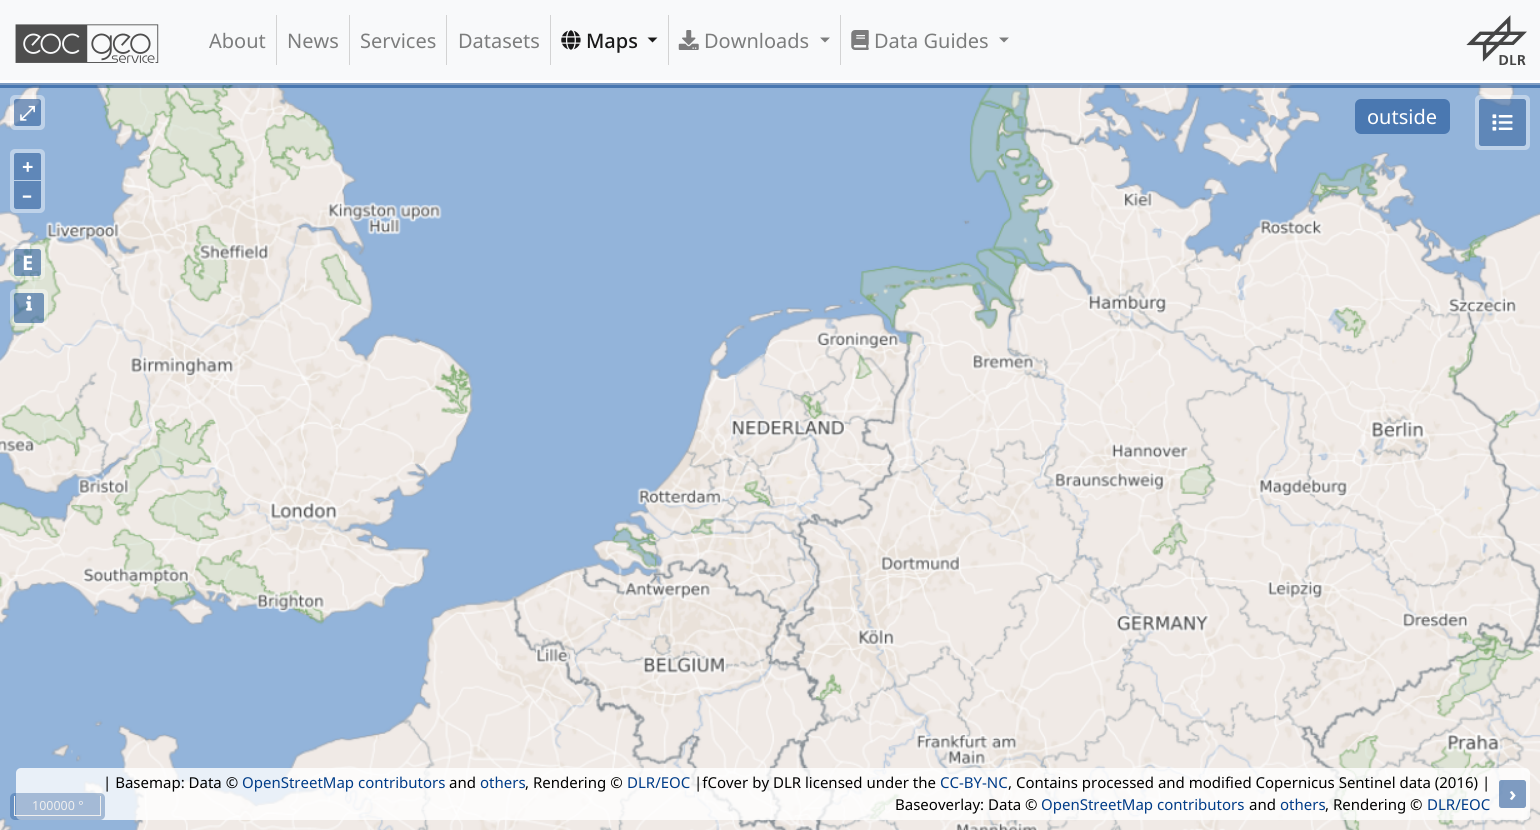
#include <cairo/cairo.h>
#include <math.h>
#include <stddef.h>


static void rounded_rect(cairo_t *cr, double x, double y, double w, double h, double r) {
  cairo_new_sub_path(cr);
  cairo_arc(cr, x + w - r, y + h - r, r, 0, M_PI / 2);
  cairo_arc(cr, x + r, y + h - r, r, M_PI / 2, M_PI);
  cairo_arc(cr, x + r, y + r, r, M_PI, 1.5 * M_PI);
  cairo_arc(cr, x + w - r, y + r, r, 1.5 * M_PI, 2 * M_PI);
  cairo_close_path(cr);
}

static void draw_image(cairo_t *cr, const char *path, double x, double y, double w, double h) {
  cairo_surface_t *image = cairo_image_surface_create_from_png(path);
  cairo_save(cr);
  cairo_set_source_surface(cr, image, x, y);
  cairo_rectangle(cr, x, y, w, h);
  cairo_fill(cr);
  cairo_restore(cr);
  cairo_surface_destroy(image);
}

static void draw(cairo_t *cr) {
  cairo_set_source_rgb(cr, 1, 1, 1);
  cairo_paint(cr);
  cairo_set_source_rgb(cr, 248 / 255.0, 249 / 255.0, 250 / 255.0);
  cairo_rectangle(cr, 0, 0, 1540, 80);
  cairo_fill(cr);
  draw_image(cr, "images/1.png", 15, 24, 144, 39);
  cairo_set_source_rgb(cr, 211 / 255.0, 211 / 255.0, 211 / 255.0);
  cairo_rectangle(cr, 276, 15, 1, 50);
  cairo_fill(cr);
  cairo_rectangle(cr, 349, 15, 1, 50);
  cairo_fill(cr);
  cairo_rectangle(cr, 446, 15, 1, 50);
  cairo_fill(cr);
  cairo_rectangle(cr, 550, 15, 1, 50);
  cairo_fill(cr);
  cairo_rectangle(cr, 668, 15, 1, 50);
  cairo_fill(cr);
  draw_image(cr, "images/2.png", 561, 30, 20, 20);
  cairo_set_source_rgb(cr, 25 / 255.0, 25 / 255.0, 25 / 255.0);
  cairo_new_path(cr);
  cairo_move_to(cr, 647.5, 37.5);
  cairo_line_to(cr, 657.5, 37.5);
  cairo_line_to(cr, 652.5, 42.5);
  cairo_close_path(cr);
  cairo_fill(cr);
  cairo_set_source_rgb(cr, 211 / 255.0, 211 / 255.0, 211 / 255.0);
  cairo_rectangle(cr, 840, 15, 1, 50);
  cairo_fill(cr);
  draw_image(cr, "images/3.png", 678, 30, 21, 20);
  cairo_set_source_rgb(cr, 124 / 255.0, 125 / 255.0, 125 / 255.0);
  cairo_new_path(cr);
  cairo_move_to(cr, 820, 37.5);
  cairo_line_to(cr, 830, 37.5);
  cairo_line_to(cr, 825, 42.5);
  cairo_close_path(cr);
  cairo_fill(cr);
  draw_image(cr, "images/4.png", 851, 30, 18, 20);
  cairo_new_path(cr);
  cairo_move_to(cr, 999, 37.5);
  cairo_line_to(cr, 1009, 37.5);
  cairo_line_to(cr, 1004, 42.5);
  cairo_close_path(cr);
  cairo_fill(cr);
  draw_image(cr, "images/5.png", 1466, 15, 61, 50);
  draw_image(cr, "images/6.png", 0, 85, 1540, 745);
  cairo_set_source_rgba(cr, 0, 60 / 255.0, 136 / 255.0, 0.5);
  cairo_rectangle(cr, 0, 83, 1540, 5);
  cairo_fill(cr);
  cairo_set_source_rgba(cr, 1, 1, 1, 0.4);
  rounded_rect(cr, 10, 95, 35, 35, 5);
  cairo_fill(cr);
  cairo_set_source_rgba(cr, 0, 60 / 255.0, 136 / 255.0, 0.5);
  rounded_rect(cr, 14, 99, 27, 27, 2.5);
  cairo_fill(cr);
  cairo_set_source_rgb(cr, 74 / 255.0, 120 / 255.0, 177 / 255.0);
  rounded_rect(cr, 1355, 99, 95, 35, 6);
  cairo_fill(cr);
  cairo_set_source_rgba(cr, 1, 1, 1, 0.4);
  rounded_rect(cr, 1475, 95, 55, 55, 5);
  cairo_fill(cr);
  cairo_set_source_rgba(cr, 0, 60 / 255.0, 136 / 255.0, 0.5);
  rounded_rect(cr, 1479, 99, 47, 47, 2.5);
  cairo_fill(cr);
  draw_image(cr, "images/7.png", 1492, 114, 21, 17);
  cairo_set_source_rgba(cr, 1, 1, 1, 0.4);
  rounded_rect(cr, 10, 149, 35, 64, 5);
  cairo_fill(cr);
  cairo_set_source_rgb(cr, 95 / 255.0, 135 / 255.0, 184 / 255.0);
  cairo_new_path(cr);
  cairo_move_to(cr, 16.5, 153);
  cairo_line_to(cr, 38.5, 153);
  cairo_curve_to(cr, 40, 153, 41, 154, 41, 155.5);
  cairo_line_to(cr, 41, 180);
  cairo_line_to(cr, 14, 180);
  cairo_line_to(cr, 14, 155.5);
  cairo_curve_to(cr, 14, 154, 15, 153, 16.5, 153);
  cairo_close_path(cr);
  cairo_fill(cr);
  cairo_new_path(cr);
  cairo_move_to(cr, 14, 181);
  cairo_line_to(cr, 41, 181);
  cairo_line_to(cr, 41, 206.5);
  cairo_curve_to(cr, 41, 208, 40, 209, 38.5, 209);
  cairo_line_to(cr, 16.5, 209);
  cairo_curve_to(cr, 15, 209, 14, 208, 14, 206.5);
  cairo_close_path(cr);
  cairo_fill(cr);
  cairo_set_source_rgba(cr, 1, 1, 1, 0.4);
  rounded_rect(cr, 10, 245, 35, 35, 5);
  cairo_fill(cr);
  cairo_set_source_rgba(cr, 0, 60 / 255.0, 136 / 255.0, 0.5);
  rounded_rect(cr, 14, 249, 27, 27, 2.5);
  cairo_fill(cr);
  cairo_set_source_rgba(cr, 1, 1, 1, 0.4);
  rounded_rect(cr, 10, 289, 38, 37, 5);
  cairo_fill(cr);
  cairo_set_source_rgba(cr, 0, 60 / 255.0, 136 / 255.0, 0.5);
  rounded_rect(cr, 14, 293, 30, 30, 2.5);
  cairo_fill(cr);
  draw_image(cr, "images/8.png", 26, 295, 6, 16);
  cairo_set_source_rgba(cr, 1, 1, 1, 0.8);
  rounded_rect(cr, 16, 768, 1514, 52, 5);
  cairo_fill(cr);
  cairo_set_source_rgba(cr, 0, 60 / 255.0, 136 / 255.0, 0.3);
  rounded_rect(cr, 10, 793, 95, 27, 5);
  cairo_fill(cr);
  cairo_set_source_rgb(cr, 238 / 255.0, 238 / 255.0, 238 / 255.0);
  cairo_rectangle(cr, 100, 796, 1, 20);
  cairo_fill(cr);
  cairo_rectangle(cr, 14, 815, 87, 1);
  cairo_fill(cr);
  cairo_rectangle(cr, 14, 796, 1, 20);
  cairo_fill(cr);
  cairo_set_source_rgba(cr, 0, 60 / 255.0, 136 / 255.0, 0.5);
  rounded_rect(cr, 1499, 780, 27, 28, 2.5);
  cairo_fill(cr);
  cairo_select_font_face(cr, "Noto Sans", CAIRO_FONT_SLANT_NORMAL, CAIRO_FONT_WEIGHT_NORMAL);
  cairo_set_font_size(cr, 20);
  cairo_set_source_rgb(cr, 124 / 255.0, 125 / 255.0, 125 / 255.0);
  cairo_move_to(cr, 209, 48);
  cairo_show_text(cr, "About");
  cairo_move_to(cr, 287, 48);
  cairo_show_text(cr, "News");
  cairo_move_to(cr, 360, 48);
  cairo_show_text(cr, "Services");
  cairo_move_to(cr, 458, 48);
  cairo_show_text(cr, "Datasets");
  cairo_select_font_face(cr, "Noto Sans Medium", CAIRO_FONT_SLANT_NORMAL, CAIRO_FONT_WEIGHT_NORMAL);
  cairo_set_source_rgb(cr, 25 / 255.0, 25 / 255.0, 25 / 255.0);
  cairo_move_to(cr, 586, 48);
  cairo_show_text(cr, "Maps");
  cairo_select_font_face(cr, "Noto Sans", CAIRO_FONT_SLANT_NORMAL, CAIRO_FONT_WEIGHT_NORMAL);
  cairo_set_source_rgb(cr, 124 / 255.0, 125 / 255.0, 125 / 255.0);
  cairo_move_to(cr, 704, 48);
  cairo_show_text(cr, "Downloads");
  cairo_move_to(cr, 874, 48);
  cairo_show_text(cr, "Data Guides");
  cairo_select_font_face(cr, "FreeSerif", CAIRO_FONT_SLANT_NORMAL, CAIRO_FONT_WEIGHT_BOLD);
  cairo_set_source_rgb(cr, 1, 1, 1);
  cairo_move_to(cr, 19, 120);
  cairo_show_text(cr, "⤢");
  cairo_select_font_face(cr, "Noto Sans", CAIRO_FONT_SLANT_NORMAL, CAIRO_FONT_WEIGHT_NORMAL);
  cairo_move_to(cr, 1367, 124);
  cairo_show_text(cr, "outside");
  cairo_select_font_face(cr, "Noto Sans", CAIRO_FONT_SLANT_NORMAL, CAIRO_FONT_WEIGHT_BOLD);
  cairo_move_to(cr, 22, 174);
  cairo_show_text(cr, "+");
  cairo_move_to(cr, 22, 202);
  cairo_show_text(cr, "–");
  cairo_move_to(cr, 22, 270);
  cairo_show_text(cr, "E");
  cairo_select_font_face(cr, "Noto Sans", CAIRO_FONT_SLANT_NORMAL, CAIRO_FONT_WEIGHT_NORMAL);
  cairo_set_font_size(cr, 12.5);
  cairo_set_source_rgb(cr, 238 / 255.0, 238 / 255.0, 238 / 255.0);
  cairo_move_to(cr, 32, 810);
  cairo_show_text(cr, "100000 °");
  cairo_set_font_size(cr, 15);
  cairo_set_source_rgb(cr, 0, 0, 0);
  cairo_move_to(cr, 103, 788);
  cairo_show_text(cr, "| Basemap: Data ©");
  cairo_set_source_rgb(cr, 0, 60 / 255.0, 136 / 255.0);
  cairo_move_to(cr, 242, 788);
  cairo_show_text(cr, "OpenStreetMap contributors");
  cairo_set_source_rgb(cr, 0, 0, 0);
  cairo_move_to(cr, 449, 788);
  cairo_show_text(cr, "and");
  cairo_set_source_rgb(cr, 0, 60 / 255.0, 136 / 255.0);
  cairo_move_to(cr, 480, 788);
  cairo_show_text(cr, "others");
  cairo_set_source_rgb(cr, 0, 0, 0);
  cairo_move_to(cr, 525, 788);
  cairo_show_text(cr, ", Rendering ©");
  cairo_set_source_rgb(cr, 0, 60 / 255.0, 136 / 255.0);
  cairo_move_to(cr, 627, 788);
  cairo_show_text(cr, "DLR/EOC");
  cairo_set_source_rgb(cr, 0, 0, 0);
  cairo_move_to(cr, 694, 788);
  cairo_show_text(cr, "|fCover by DLR licensed under the");
  cairo_set_source_rgb(cr, 0, 60 / 255.0, 136 / 255.0);
  cairo_move_to(cr, 940, 788);
  cairo_show_text(cr, "CC-BY-NC");
  cairo_set_source_rgb(cr, 0, 0, 0);
  cairo_move_to(cr, 1008, 788);
  cairo_show_text(cr, ", Contains processed and modified Copernicus Sentinel data (2016) |");
  cairo_move_to(cr, 895, 810);
  cairo_show_text(cr, "Baseoverlay: Data ©");
  cairo_set_source_rgb(cr, 0, 60 / 255.0, 136 / 255.0);
  cairo_move_to(cr, 1041, 810);
  cairo_show_text(cr, "OpenStreetMap contributors");
  cairo_set_source_rgb(cr, 0, 0, 0);
  cairo_move_to(cr, 1249, 810);
  cairo_show_text(cr, "and");
  cairo_set_source_rgb(cr, 0, 60 / 255.0, 136 / 255.0);
  cairo_move_to(cr, 1280, 810);
  cairo_show_text(cr, "others");
  cairo_set_source_rgb(cr, 0, 0, 0);
  cairo_move_to(cr, 1325, 810);
  cairo_show_text(cr, ", Rendering ©");
  cairo_set_source_rgb(cr, 0, 60 / 255.0, 136 / 255.0);
  cairo_move_to(cr, 1427, 810);
  cairo_show_text(cr, "DLR/EOC");
  cairo_select_font_face(cr, "Noto Sans", CAIRO_FONT_SLANT_NORMAL, CAIRO_FONT_WEIGHT_BOLD);
  cairo_set_font_size(cr, 20);
  cairo_set_source_rgb(cr, 1, 1, 1);
  cairo_move_to(cr, 1509, 801);
  cairo_show_text(cr, "›");
}

int main(void) {
  cairo_surface_t *surface = cairo_image_surface_create(CAIRO_FORMAT_RGB24, 1540, 830);
  cairo_t *cr = cairo_create(surface);
  cairo_font_options_t *options = cairo_font_options_create();
  cairo_font_options_set_hint_metrics(options, CAIRO_HINT_METRICS_OFF);
  cairo_font_options_set_hint_style(options, CAIRO_HINT_STYLE_NONE);
  cairo_set_font_options(cr, options);
  cairo_set_miter_limit(cr, 4);
  draw(cr);
  cairo_surface_write_to_png(surface, "out.png");
  cairo_font_options_destroy(options);
  cairo_destroy(cr);
  cairo_surface_destroy(surface);
  return 0;
}
